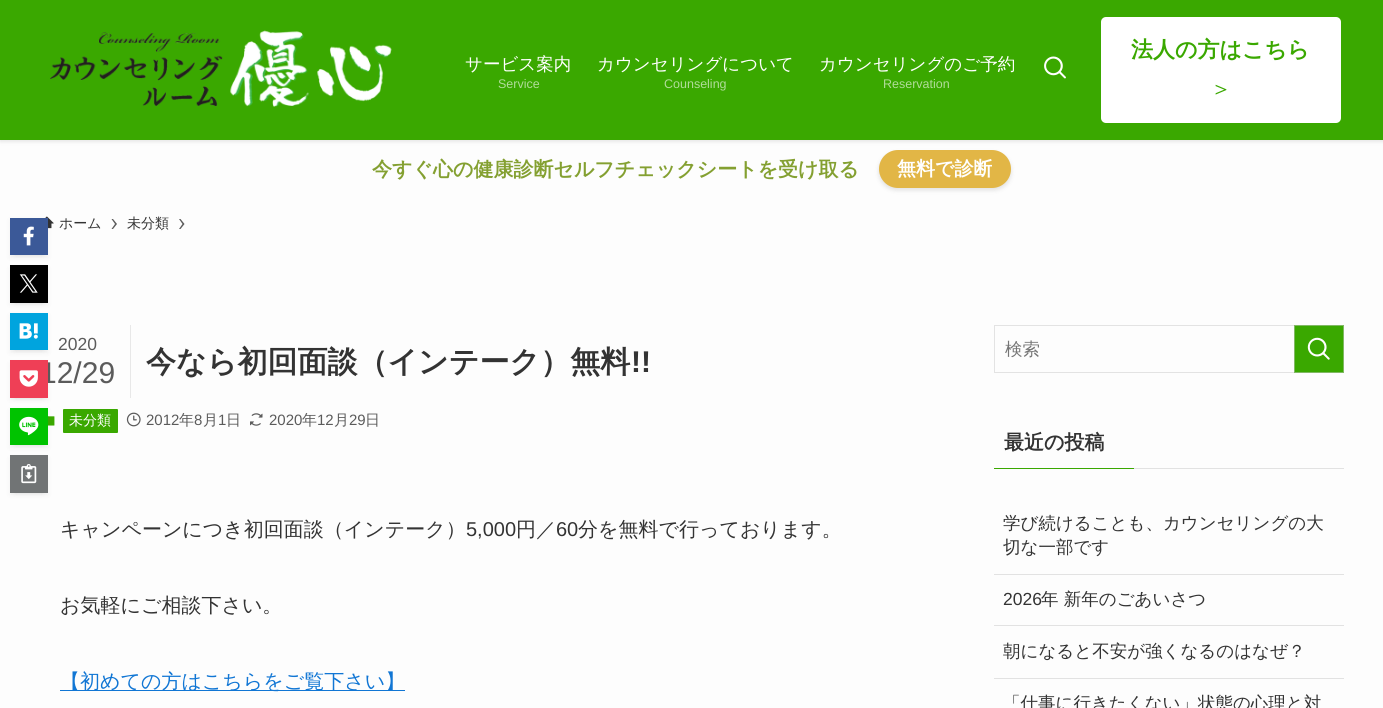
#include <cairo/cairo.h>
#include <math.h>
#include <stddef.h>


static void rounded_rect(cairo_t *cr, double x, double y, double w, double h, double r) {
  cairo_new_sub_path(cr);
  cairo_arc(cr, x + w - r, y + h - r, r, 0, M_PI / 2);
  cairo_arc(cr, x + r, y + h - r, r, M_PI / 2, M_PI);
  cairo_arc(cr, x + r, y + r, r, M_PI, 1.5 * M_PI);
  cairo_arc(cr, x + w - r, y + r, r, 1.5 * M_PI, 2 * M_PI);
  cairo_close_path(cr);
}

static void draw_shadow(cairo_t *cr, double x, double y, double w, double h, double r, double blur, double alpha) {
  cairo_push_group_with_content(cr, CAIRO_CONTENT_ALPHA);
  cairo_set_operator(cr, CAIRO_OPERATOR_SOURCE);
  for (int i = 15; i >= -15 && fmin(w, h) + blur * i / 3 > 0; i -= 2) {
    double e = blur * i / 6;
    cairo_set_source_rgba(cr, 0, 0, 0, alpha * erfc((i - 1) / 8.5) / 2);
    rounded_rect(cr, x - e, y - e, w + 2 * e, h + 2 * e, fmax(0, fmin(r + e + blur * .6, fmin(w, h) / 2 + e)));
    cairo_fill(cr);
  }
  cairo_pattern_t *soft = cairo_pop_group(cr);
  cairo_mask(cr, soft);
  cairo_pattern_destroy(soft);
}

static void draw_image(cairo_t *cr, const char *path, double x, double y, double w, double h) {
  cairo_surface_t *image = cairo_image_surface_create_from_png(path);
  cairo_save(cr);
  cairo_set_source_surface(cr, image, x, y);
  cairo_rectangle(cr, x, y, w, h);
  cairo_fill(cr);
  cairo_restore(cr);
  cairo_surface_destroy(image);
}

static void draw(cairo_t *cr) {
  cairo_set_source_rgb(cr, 253 / 255.0, 253 / 255.0, 253 / 255.0);
  cairo_paint(cr);
  cairo_set_source_rgb(cr, 0, 0, 0);
  draw_shadow(cr, 0, 1, 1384, 140, 0, 2.5, 0.12);
  cairo_set_source_rgb(cr, 58 / 255.0, 168 / 255.0, 0);
  cairo_rectangle(cr, 0, 0, 1383, 140);
  cairo_fill(cr);
  draw_image(cr, "images/1.png", 50, 30, 342, 77);
  draw_image(cr, "images/2.png", 1044, 56, 22, 23);
  cairo_set_source_rgb(cr, 1, 1, 1);
  rounded_rect(cr, 1099.5, 15.5, 243, 109, 6.5);
  cairo_fill_preserve(cr);
  cairo_set_source_rgb(cr, 58 / 255.0, 168 / 255.0, 0);
  cairo_set_line_width(cr, 3);
  cairo_stroke(cr);
  cairo_set_source_rgb(cr, 0, 0, 0);
  draw_shadow(cr, 879, 153, 132, 37, 18.5, 2.5, 0.12);
  cairo_set_source_rgb(cr, 226 / 255.0, 182 / 255.0, 70 / 255.0);
  rounded_rect(cr, 879, 150, 132, 38, 19);
  cairo_fill(cr);
  draw_image(cr, "images/3.png", 45, 216, 9, 13);
  cairo_set_source_rgb(cr, 91 / 255.0, 91 / 255.0, 91 / 255.0);
  cairo_new_path(cr);
  cairo_move_to(cr, 113, 219);
  cairo_line_to(cr, 111.5, 219);
  cairo_line_to(cr, 115, 224);
  cairo_line_to(cr, 111.5, 229);
  cairo_line_to(cr, 113, 229);
  cairo_line_to(cr, 117, 224);
  cairo_close_path(cr);
  cairo_fill(cr);
  cairo_new_path(cr);
  cairo_move_to(cr, 180.5, 219);
  cairo_line_to(cr, 179, 219);
  cairo_line_to(cr, 182.5, 224);
  cairo_line_to(cr, 179, 229);
  cairo_line_to(cr, 180.5, 229);
  cairo_line_to(cr, 184.5, 224);
  cairo_close_path(cr);
  cairo_fill(cr);
  cairo_set_source_rgb(cr, 0, 0, 0);
  draw_shadow(cr, 15, 228, 28, 27, 0, 2.5, 0.1);
  draw_shadow(cr, 10, 220, 38, 38, 0, 2.5, 0.05);
  cairo_set_source_rgb(cr, 59 / 255.0, 89 / 255.0, 152 / 255.0);
  cairo_rectangle(cr, 10, 218, 38, 37);
  cairo_fill(cr);
  draw_image(cr, "images/4.png", 23, 226, 11, 20);
  cairo_set_source_rgb(cr, 0, 0, 0);
  draw_shadow(cr, 15, 275, 28, 28, 0, 2.5, 0.1);
  draw_shadow(cr, 10, 268, 38, 37, 0, 2.5, 0.05);
  cairo_set_source_rgb(cr, 0, 0, 0);
  cairo_rectangle(cr, 10, 265, 38, 38);
  cairo_fill(cr);
  draw_image(cr, "images/5.png", 19, 274, 19, 19);
  cairo_set_source_rgb(cr, 0, 0, 0);
  draw_shadow(cr, 15, 323, 28, 27, 0, 2.5, 0.1);
  draw_shadow(cr, 10, 315, 38, 38, 0, 2.5, 0.05);
  cairo_set_source_rgb(cr, 0, 164 / 255.0, 222 / 255.0);
  cairo_rectangle(cr, 10, 313, 38, 37);
  cairo_fill(cr);
  draw_image(cr, "images/6.png", 19, 323, 19, 16);
  cairo_set_source_rgb(cr, 0, 0, 0);
  draw_shadow(cr, 15, 370, 28, 28, 0, 2.5, 0.1);
  draw_shadow(cr, 10, 363, 38, 37, 0, 2.5, 0.05);
  draw_image(cr, "images/10.png", 48, 416, 7, 10);
  draw_shadow(cr, 15, 418, 28, 27, 0, 2.5, 0.1);
  draw_shadow(cr, 10, 410, 38, 38, 0, 2.5, 0.05);
  cairo_set_source_rgb(cr, 0, 195 / 255.0, 0);
  cairo_rectangle(cr, 10, 408, 38, 37);
  cairo_fill(cr);
  draw_image(cr, "images/8.png", 19, 416, 20, 20);
  cairo_set_source_rgb(cr, 0, 0, 0);
  draw_shadow(cr, 15, 465, 28, 28, 0, 2.5, 0.1);
  draw_shadow(cr, 10, 458, 38, 37, 0, 2.5, 0.05);
  cairo_set_source_rgb(cr, 113 / 255.0, 116 / 255.0, 117 / 255.0);
  cairo_rectangle(cr, 10, 455, 38, 38);
  cairo_fill(cr);
  draw_image(cr, "images/9.png", 21, 464, 16, 20);
  cairo_set_source_rgb(cr, 232 / 255.0, 232 / 255.0, 232 / 255.0);
  cairo_rectangle(cr, 130, 325, 1, 73);
  cairo_fill(cr);
  cairo_set_source_rgb(cr, 58 / 255.0, 168 / 255.0, 0);
  rounded_rect(cr, 63, 409, 55, 24, 1);
  cairo_fill(cr);
  draw_image(cr, "images/11.png", 126, 412, 15, 15);
  draw_image(cr, "images/12.png", 250, 413, 13, 13);
  cairo_set_source_rgb(cr, 17 / 255.0, 118 / 255.0, 212 / 255.0);
  cairo_rectangle(cr, 60, 690, 345, 1);
  cairo_fill(cr);
  cairo_rectangle(cr, 994.5, 325.5, 349, 47);
  cairo_set_source_rgb(cr, 227 / 255.0, 227 / 255.0, 227 / 255.0);
  cairo_set_line_width(cr, 1);
  cairo_stroke(cr);
  cairo_set_source_rgb(cr, 58 / 255.0, 168 / 255.0, 0);
  cairo_rectangle(cr, 1294.5, 325.5, 49, 47);
  cairo_fill_preserve(cr);
  cairo_set_source_rgb(cr, 129 / 255.0, 184 / 255.0, 100 / 255.0);
  cairo_stroke(cr);
  draw_image(cr, "images/13.png", 1307, 337, 23, 23);
  cairo_set_source_rgb(cr, 58 / 255.0, 168 / 255.0, 0);
  cairo_rectangle(cr, 994, 468, 140, 1);
  cairo_fill(cr);
  cairo_set_source_rgb(cr, 226 / 255.0, 226 / 255.0, 226 / 255.0);
  cairo_rectangle(cr, 1134, 468, 210, 1);
  cairo_fill(cr);
  cairo_rectangle(cr, 994, 574, 350, 1);
  cairo_fill(cr);
  cairo_rectangle(cr, 994, 625, 350, 1);
  cairo_fill(cr);
  cairo_rectangle(cr, 994, 678, 350, 1);
  cairo_fill(cr);
  cairo_select_font_face(cr, "WenQuanYi Zen Hei Medium", CAIRO_FONT_SLANT_NORMAL, CAIRO_FONT_WEIGHT_NORMAL);
  cairo_set_font_size(cr, 17.5);
  cairo_set_source_rgb(cr, 1, 1, 1);
  cairo_move_to(cr, 465, 70);
  cairo_show_text(cr, "サービス案内");
  cairo_select_font_face(cr, "Liberation Sans", CAIRO_FONT_SLANT_NORMAL, CAIRO_FONT_WEIGHT_NORMAL);
  cairo_set_font_size(cr, 12.5);
  cairo_set_source_rgb(cr, 176 / 255.0, 220 / 255.0, 153 / 255.0);
  cairo_move_to(cr, 498, 88);
  cairo_show_text(cr, "Service");
  cairo_select_font_face(cr, "WenQuanYi Zen Hei Medium", CAIRO_FONT_SLANT_NORMAL, CAIRO_FONT_WEIGHT_NORMAL);
  cairo_set_font_size(cr, 17.5);
  cairo_set_source_rgb(cr, 1, 1, 1);
  cairo_move_to(cr, 597, 70);
  cairo_show_text(cr, "カウンセリングについて");
  cairo_select_font_face(cr, "Liberation Sans", CAIRO_FONT_SLANT_NORMAL, CAIRO_FONT_WEIGHT_NORMAL);
  cairo_set_font_size(cr, 12.5);
  cairo_set_source_rgb(cr, 176 / 255.0, 220 / 255.0, 153 / 255.0);
  cairo_move_to(cr, 664, 88);
  cairo_show_text(cr, "Counseling");
  cairo_select_font_face(cr, "WenQuanYi Zen Hei Medium", CAIRO_FONT_SLANT_NORMAL, CAIRO_FONT_WEIGHT_NORMAL);
  cairo_set_font_size(cr, 17.5);
  cairo_set_source_rgb(cr, 1, 1, 1);
  cairo_move_to(cr, 819, 70);
  cairo_show_text(cr, "カウンセリングのご予約");
  cairo_select_font_face(cr, "Liberation Sans", CAIRO_FONT_SLANT_NORMAL, CAIRO_FONT_WEIGHT_NORMAL);
  cairo_set_font_size(cr, 12.5);
  cairo_set_source_rgb(cr, 176 / 255.0, 220 / 255.0, 153 / 255.0);
  cairo_move_to(cr, 883, 88);
  cairo_show_text(cr, "Reservation");
  cairo_select_font_face(cr, "WenQuanYi Zen Hei", CAIRO_FONT_SLANT_NORMAL, CAIRO_FONT_WEIGHT_BOLD);
  cairo_set_font_size(cr, 22);
  cairo_set_source_rgb(cr, 58 / 255.0, 168 / 255.0, 0);
  cairo_move_to(cr, 1131, 57);
  cairo_show_text(cr, "法人の方はこちら");
  cairo_select_font_face(cr, "WenQuanYi Zen Hei Medium", CAIRO_FONT_SLANT_NORMAL, CAIRO_FONT_WEIGHT_NORMAL);
  cairo_move_to(cr, 1210, 96);
  cairo_show_text(cr, "＞");
  cairo_select_font_face(cr, "WenQuanYi Zen Hei", CAIRO_FONT_SLANT_NORMAL, CAIRO_FONT_WEIGHT_BOLD);
  cairo_set_font_size(cr, 20);
  cairo_set_source_rgb(cr, 132 / 255.0, 160 / 255.0, 49 / 255.0);
  cairo_move_to(cr, 372, 176);
  cairo_show_text(cr, "今すぐ心の健康診断セルフチェックシートを受け取る");
  cairo_set_font_size(cr, 19);
  cairo_set_source_rgb(cr, 1, 1, 1);
  cairo_move_to(cr, 897, 175);
  cairo_show_text(cr, "無料で診断");
  cairo_select_font_face(cr, "WenQuanYi Zen Hei Medium", CAIRO_FONT_SLANT_NORMAL, CAIRO_FONT_WEIGHT_NORMAL);
  cairo_set_font_size(cr, 14);
  cairo_set_source_rgb(cr, 51 / 255.0, 51 / 255.0, 51 / 255.0);
  cairo_move_to(cr, 59, 228);
  cairo_show_text(cr, "ホーム");
  cairo_move_to(cr, 127, 228);
  cairo_show_text(cr, "未分類");
  cairo_select_font_face(cr, "Liberation Sans", CAIRO_FONT_SLANT_NORMAL, CAIRO_FONT_WEIGHT_NORMAL);
  cairo_set_font_size(cr, 17.5);
  cairo_set_source_rgb(cr, 91 / 255.0, 91 / 255.0, 91 / 255.0);
  cairo_move_to(cr, 58, 350);
  cairo_show_text(cr, "2020");
  cairo_set_font_size(cr, 30);
  cairo_move_to(cr, 40, 383);
  cairo_show_text(cr, "12/29");
  cairo_set_source_rgb(cr, 239 / 255.0, 63 / 255.0, 86 / 255.0);
  cairo_rectangle(cr, 10, 360, 38, 38);
  cairo_fill(cr);
  draw_image(cr, "images/7.png", 19, 370, 19, 17);
  cairo_select_font_face(cr, "WenQuanYi Zen Hei", CAIRO_FONT_SLANT_NORMAL, CAIRO_FONT_WEIGHT_BOLD);
  cairo_set_source_rgb(cr, 51 / 255.0, 51 / 255.0, 51 / 255.0);
  cairo_move_to(cr, 146, 372);
  cairo_show_text(cr, "今なら初回面談（インテーク）無料");
  cairo_select_font_face(cr, "Liberation Sans", CAIRO_FONT_SLANT_NORMAL, CAIRO_FONT_WEIGHT_BOLD);
  cairo_move_to(cr, 631, 372);
  cairo_show_text(cr, "!!");
  cairo_select_font_face(cr, "WenQuanYi Zen Hei Medium", CAIRO_FONT_SLANT_NORMAL, CAIRO_FONT_WEIGHT_NORMAL);
  cairo_set_font_size(cr, 14);
  cairo_set_source_rgb(cr, 1, 1, 1);
  cairo_move_to(cr, 69, 425);
  cairo_show_text(cr, "未分類");
  cairo_select_font_face(cr, "Liberation Sans", CAIRO_FONT_SLANT_NORMAL, CAIRO_FONT_WEIGHT_NORMAL);
  cairo_set_font_size(cr, 15);
  cairo_set_source_rgb(cr, 91 / 255.0, 91 / 255.0, 91 / 255.0);
  cairo_move_to(cr, 146, 425);
  cairo_show_text(cr, "2012");
  cairo_select_font_face(cr, "WenQuanYi Zen Hei Medium", CAIRO_FONT_SLANT_NORMAL, CAIRO_FONT_WEIGHT_NORMAL);
  cairo_move_to(cr, 179, 425);
  cairo_show_text(cr, "年");
  cairo_select_font_face(cr, "Liberation Sans", CAIRO_FONT_SLANT_NORMAL, CAIRO_FONT_WEIGHT_NORMAL);
  cairo_move_to(cr, 194, 425);
  cairo_show_text(cr, "8");
  cairo_select_font_face(cr, "WenQuanYi Zen Hei Medium", CAIRO_FONT_SLANT_NORMAL, CAIRO_FONT_WEIGHT_NORMAL);
  cairo_move_to(cr, 203, 425);
  cairo_show_text(cr, "月");
  cairo_select_font_face(cr, "Liberation Sans", CAIRO_FONT_SLANT_NORMAL, CAIRO_FONT_WEIGHT_NORMAL);
  cairo_move_to(cr, 218, 425);
  cairo_show_text(cr, "1");
  cairo_select_font_face(cr, "WenQuanYi Zen Hei Medium", CAIRO_FONT_SLANT_NORMAL, CAIRO_FONT_WEIGHT_NORMAL);
  cairo_move_to(cr, 226, 425);
  cairo_show_text(cr, "日");
  cairo_select_font_face(cr, "Liberation Sans", CAIRO_FONT_SLANT_NORMAL, CAIRO_FONT_WEIGHT_NORMAL);
  cairo_move_to(cr, 269, 425);
  cairo_show_text(cr, "2020");
  cairo_select_font_face(cr, "WenQuanYi Zen Hei Medium", CAIRO_FONT_SLANT_NORMAL, CAIRO_FONT_WEIGHT_NORMAL);
  cairo_move_to(cr, 302, 425);
  cairo_show_text(cr, "年");
  cairo_select_font_face(cr, "Liberation Sans", CAIRO_FONT_SLANT_NORMAL, CAIRO_FONT_WEIGHT_NORMAL);
  cairo_move_to(cr, 317, 425);
  cairo_show_text(cr, "12");
  cairo_select_font_face(cr, "WenQuanYi Zen Hei Medium", CAIRO_FONT_SLANT_NORMAL, CAIRO_FONT_WEIGHT_NORMAL);
  cairo_move_to(cr, 334, 425);
  cairo_show_text(cr, "月");
  cairo_select_font_face(cr, "Liberation Sans", CAIRO_FONT_SLANT_NORMAL, CAIRO_FONT_WEIGHT_NORMAL);
  cairo_move_to(cr, 349, 425);
  cairo_show_text(cr, "29");
  cairo_select_font_face(cr, "WenQuanYi Zen Hei Medium", CAIRO_FONT_SLANT_NORMAL, CAIRO_FONT_WEIGHT_NORMAL);
  cairo_move_to(cr, 365, 425);
  cairo_show_text(cr, "日");
  cairo_set_font_size(cr, 20);
  cairo_set_source_rgb(cr, 51 / 255.0, 51 / 255.0, 51 / 255.0);
  cairo_move_to(cr, 60, 536);
  cairo_show_text(cr, "キャンペーンにつき初回面談（インテーク）");
  cairo_select_font_face(cr, "Liberation Sans", CAIRO_FONT_SLANT_NORMAL, CAIRO_FONT_WEIGHT_NORMAL);
  cairo_move_to(cr, 466, 536);
  cairo_show_text(cr, "5,000");
  cairo_select_font_face(cr, "WenQuanYi Zen Hei Medium", CAIRO_FONT_SLANT_NORMAL, CAIRO_FONT_WEIGHT_NORMAL);
  cairo_move_to(cr, 516, 536);
  cairo_show_text(cr, "円／");
  cairo_select_font_face(cr, "Liberation Sans", CAIRO_FONT_SLANT_NORMAL, CAIRO_FONT_WEIGHT_NORMAL);
  cairo_move_to(cr, 556, 536);
  cairo_show_text(cr, "60");
  cairo_select_font_face(cr, "WenQuanYi Zen Hei Medium", CAIRO_FONT_SLANT_NORMAL, CAIRO_FONT_WEIGHT_NORMAL);
  cairo_move_to(cr, 578, 536);
  cairo_show_text(cr, "分を無料で行っております。");
  cairo_move_to(cr, 60, 612);
  cairo_show_text(cr, "お気軽にご相談下さい。");
  cairo_set_source_rgb(cr, 17 / 255.0, 118 / 255.0, 212 / 255.0);
  cairo_move_to(cr, 60, 688);
  cairo_show_text(cr, "【初めての方はこちらをご覧下さい】");
  cairo_set_font_size(cr, 17.5);
  cairo_set_source_rgb(cr, 117 / 255.0, 117 / 255.0, 117 / 255.0);
  cairo_move_to(cr, 1005, 355);
  cairo_show_text(cr, "検索");
  cairo_select_font_face(cr, "WenQuanYi Zen Hei", CAIRO_FONT_SLANT_NORMAL, CAIRO_FONT_WEIGHT_BOLD);
  cairo_set_font_size(cr, 20);
  cairo_set_source_rgb(cr, 51 / 255.0, 51 / 255.0, 51 / 255.0);
  cairo_move_to(cr, 1004, 449);
  cairo_show_text(cr, "最近の投稿");
  cairo_select_font_face(cr, "WenQuanYi Zen Hei Medium", CAIRO_FONT_SLANT_NORMAL, CAIRO_FONT_WEIGHT_NORMAL);
  cairo_set_font_size(cr, 17.5);
  cairo_move_to(cr, 1003, 529);
  cairo_show_text(cr, "学び続けることも、カウンセリングの大");
  cairo_move_to(cr, 1003, 553);
  cairo_show_text(cr, "切な一部です");
  cairo_select_font_face(cr, "Liberation Sans", CAIRO_FONT_SLANT_NORMAL, CAIRO_FONT_WEIGHT_NORMAL);
  cairo_move_to(cr, 1003, 605);
  cairo_show_text(cr, "2026");
  cairo_select_font_face(cr, "WenQuanYi Zen Hei Medium", CAIRO_FONT_SLANT_NORMAL, CAIRO_FONT_WEIGHT_NORMAL);
  cairo_move_to(cr, 1041, 605);
  cairo_show_text(cr, "年 新年のごあいさつ");
  cairo_move_to(cr, 1003, 657);
  cairo_show_text(cr, "朝になると不安が強くなるのはなぜ？");
  cairo_move_to(cr, 1003, 709);
  cairo_show_text(cr, "「仕事に行きたくない」状態の心理と対");
}

int main(void) {
  cairo_surface_t *surface = cairo_image_surface_create(CAIRO_FORMAT_RGB24, 1383, 708);
  cairo_t *cr = cairo_create(surface);
  cairo_font_options_t *options = cairo_font_options_create();
  cairo_font_options_set_hint_metrics(options, CAIRO_HINT_METRICS_OFF);
  cairo_font_options_set_hint_style(options, CAIRO_HINT_STYLE_NONE);
  cairo_set_font_options(cr, options);
  cairo_set_miter_limit(cr, 4);
  draw(cr);
  cairo_surface_write_to_png(surface, "out.png");
  cairo_font_options_destroy(options);
  cairo_destroy(cr);
  cairo_surface_destroy(surface);
  return 0;
}
